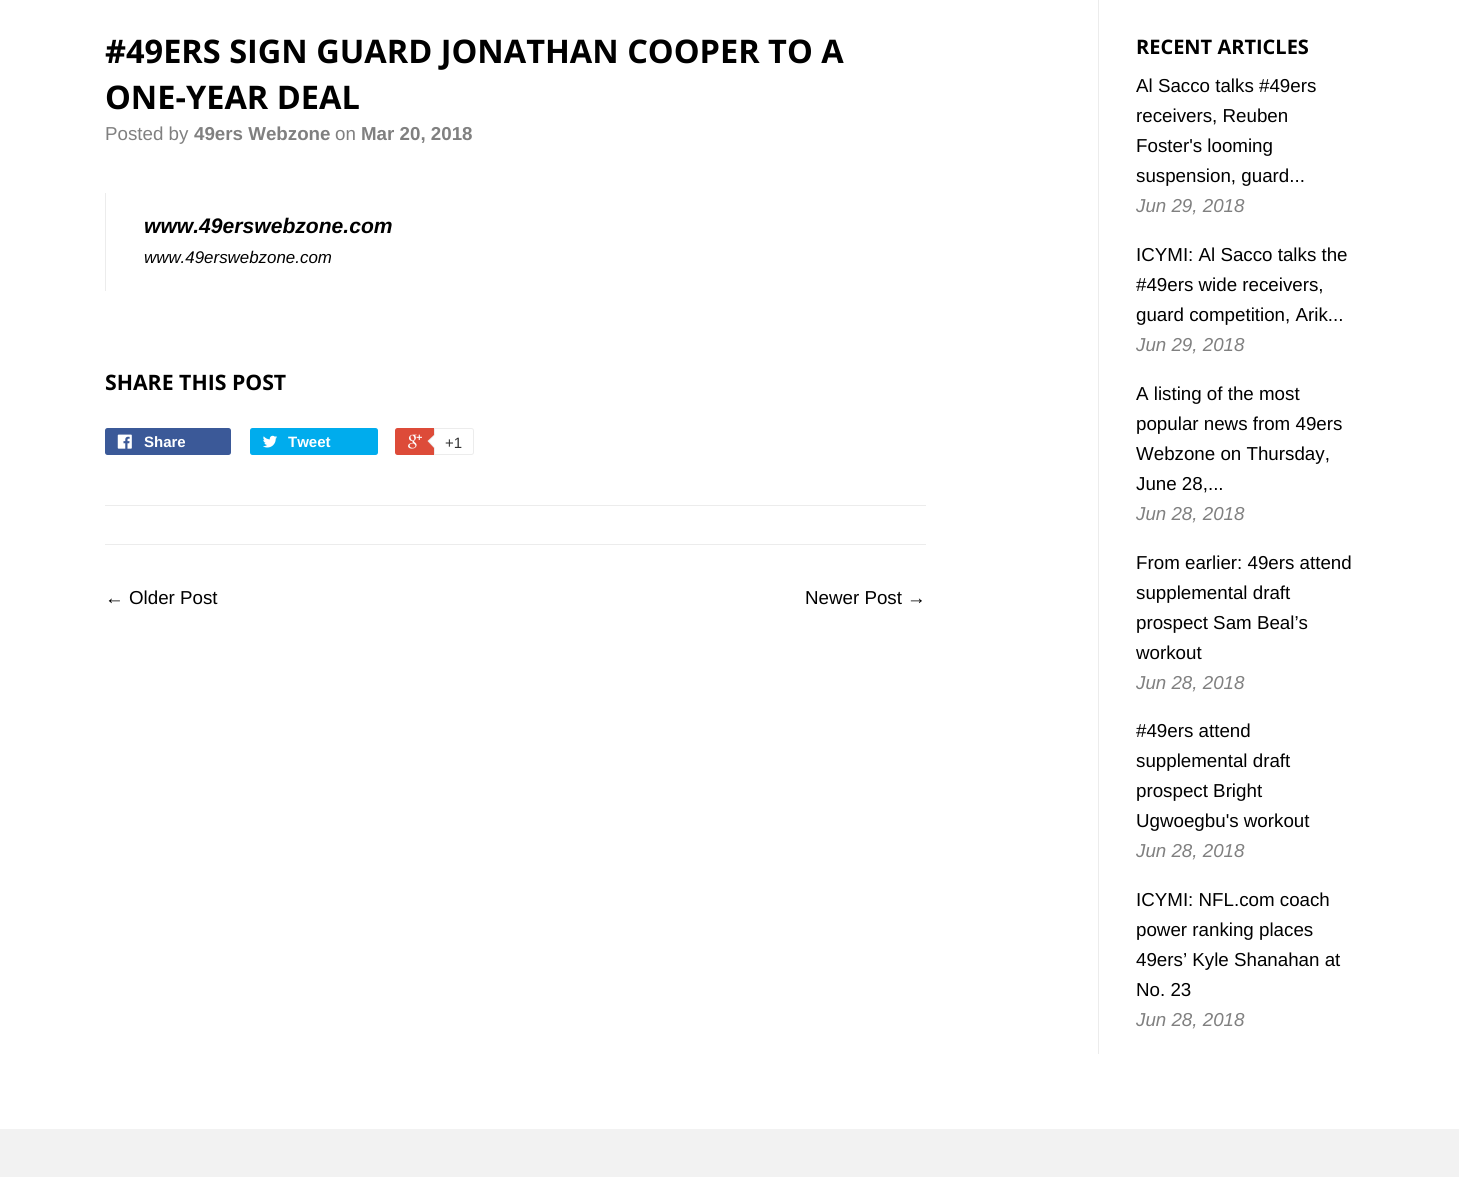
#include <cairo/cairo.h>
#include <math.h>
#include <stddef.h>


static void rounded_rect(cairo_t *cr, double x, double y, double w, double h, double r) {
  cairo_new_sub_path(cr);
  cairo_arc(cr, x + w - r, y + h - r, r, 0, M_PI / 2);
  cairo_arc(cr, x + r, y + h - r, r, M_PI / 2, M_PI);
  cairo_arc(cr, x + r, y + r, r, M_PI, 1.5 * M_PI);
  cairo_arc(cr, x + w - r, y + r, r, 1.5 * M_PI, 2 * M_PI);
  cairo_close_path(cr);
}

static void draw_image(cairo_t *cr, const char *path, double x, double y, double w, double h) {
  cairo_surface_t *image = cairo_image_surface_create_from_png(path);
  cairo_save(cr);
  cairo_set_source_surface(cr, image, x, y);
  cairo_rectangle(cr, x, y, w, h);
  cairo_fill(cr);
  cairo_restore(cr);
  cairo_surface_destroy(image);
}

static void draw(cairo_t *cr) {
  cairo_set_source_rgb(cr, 1, 1, 1);
  cairo_paint(cr);
  cairo_set_source_rgb(cr, 236 / 255.0, 236 / 255.0, 236 / 255.0);
  cairo_rectangle(cr, 105, 193, 1, 98);
  cairo_fill(cr);
  cairo_set_source_rgb(cr, 59 / 255.0, 89 / 255.0, 152 / 255.0);
  rounded_rect(cr, 105, 428, 126, 27, 2.5);
  cairo_fill(cr);
  draw_image(cr, "images/1.png", 117, 434, 15, 15);
  cairo_set_source_rgb(cr, 0, 172 / 255.0, 237 / 255.0);
  rounded_rect(cr, 250, 428, 128, 27, 2.5);
  cairo_fill(cr);
  draw_image(cr, "images/2.png", 263, 435, 14, 13);
  cairo_set_source_rgb(cr, 221 / 255.0, 75 / 255.0, 57 / 255.0);
  rounded_rect(cr, 395, 428, 76, 27, 2.5);
  cairo_fill(cr);
  draw_image(cr, "images/3.png", 408, 434, 14, 15);
  cairo_set_source_rgb(cr, 1, 1, 1);
  cairo_new_path(cr);
  cairo_move_to(cr, 434.5, 428.5);
  cairo_line_to(cr, 471.5, 428.5);
  cairo_curve_to(cr, 472.5, 428.5, 473.5, 429.5, 473.5, 430.5);
  cairo_line_to(cr, 473.5, 452.5);
  cairo_curve_to(cr, 473.5, 453.5, 472.5, 454.5, 471.5, 454.5);
  cairo_line_to(cr, 434.5, 454.5);
  cairo_close_path(cr);
  cairo_fill_preserve(cr);
  cairo_set_source_rgb(cr, 236 / 255.0, 236 / 255.0, 236 / 255.0);
  cairo_set_line_width(cr, 1);
  cairo_stroke(cr);
  cairo_new_path(cr);
  cairo_move_to(cr, 435, 434);
  cairo_line_to(cr, 435, 449);
  cairo_line_to(cr, 427.5, 441);
  cairo_close_path(cr);
  cairo_fill(cr);
  cairo_set_source_rgb(cr, 1, 1, 1);
  cairo_new_path(cr);
  cairo_move_to(cr, 436, 434);
  cairo_line_to(cr, 436, 449);
  cairo_line_to(cr, 429, 441);
  cairo_close_path(cr);
  cairo_fill(cr);
  cairo_set_source_rgb(cr, 236 / 255.0, 236 / 255.0, 236 / 255.0);
  cairo_rectangle(cr, 105, 505, 821, 1);
  cairo_fill(cr);
  cairo_rectangle(cr, 105, 544, 821, 1);
  cairo_fill(cr);
  cairo_rectangle(cr, 1098, 0, 1, 1054);
  cairo_fill(cr);
  cairo_set_source_rgb(cr, 242 / 255.0, 242 / 255.0, 242 / 255.0);
  cairo_rectangle(cr, 0, 1129, 1459, 48);
  cairo_fill(cr);
  cairo_select_font_face(cr, "Open Sans", CAIRO_FONT_SLANT_NORMAL, CAIRO_FONT_WEIGHT_BOLD);
  cairo_set_font_size(cr, 32.5);
  cairo_set_source_rgb(cr, 0, 0, 0);
  cairo_move_to(cr, 105, 63);
  cairo_show_text(cr, "#49ERS SIGN GUARD JONATHAN COOPER TO A");
  cairo_move_to(cr, 105, 109);
  cairo_show_text(cr, "ONE-YEAR DEAL");
  cairo_select_font_face(cr, "Liberation Sans", CAIRO_FONT_SLANT_NORMAL, CAIRO_FONT_WEIGHT_NORMAL);
  cairo_set_font_size(cr, 18.75);
  cairo_set_source_rgb(cr, 128 / 255.0, 128 / 255.0, 128 / 255.0);
  cairo_move_to(cr, 105, 140);
  cairo_show_text(cr, "Posted by");
  cairo_select_font_face(cr, "Liberation Sans", CAIRO_FONT_SLANT_NORMAL, CAIRO_FONT_WEIGHT_BOLD);
  cairo_move_to(cr, 194, 140);
  cairo_show_text(cr, "49ers Webzone");
  cairo_select_font_face(cr, "Liberation Sans", CAIRO_FONT_SLANT_NORMAL, CAIRO_FONT_WEIGHT_NORMAL);
  cairo_move_to(cr, 335, 140);
  cairo_show_text(cr, "on");
  cairo_select_font_face(cr, "Liberation Sans", CAIRO_FONT_SLANT_NORMAL, CAIRO_FONT_WEIGHT_BOLD);
  cairo_move_to(cr, 361, 140);
  cairo_show_text(cr, "Mar 20, 2018");
  cairo_select_font_face(cr, "Liberation Sans", CAIRO_FONT_SLANT_ITALIC, CAIRO_FONT_WEIGHT_BOLD);
  cairo_set_font_size(cr, 21.1);
  cairo_set_source_rgb(cr, 0, 0, 0);
  cairo_move_to(cr, 144, 233);
  cairo_show_text(cr, "www.49erswebzone.com");
  cairo_select_font_face(cr, "Liberation Sans", CAIRO_FONT_SLANT_ITALIC, CAIRO_FONT_WEIGHT_NORMAL);
  cairo_set_font_size(cr, 16.9);
  cairo_move_to(cr, 144, 263);
  cairo_show_text(cr, "www.49erswebzone.com");
  cairo_select_font_face(cr, "Open Sans", CAIRO_FONT_SLANT_NORMAL, CAIRO_FONT_WEIGHT_BOLD);
  cairo_set_font_size(cr, 21.25);
  cairo_move_to(cr, 105, 390);
  cairo_show_text(cr, "SHARE THIS POST");
  cairo_select_font_face(cr, "Liberation Sans", CAIRO_FONT_SLANT_NORMAL, CAIRO_FONT_WEIGHT_BOLD);
  cairo_set_font_size(cr, 15);
  cairo_set_source_rgb(cr, 1, 1, 1);
  cairo_move_to(cr, 144, 447);
  cairo_show_text(cr, "Share");
  cairo_move_to(cr, 288, 447);
  cairo_show_text(cr, "Tweet");
  cairo_select_font_face(cr, "Liberation Sans", CAIRO_FONT_SLANT_NORMAL, CAIRO_FONT_WEIGHT_NORMAL);
  cairo_set_source_rgb(cr, 51 / 255.0, 51 / 255.0, 51 / 255.0);
  cairo_move_to(cr, 445, 448);
  cairo_show_text(cr, "+1");
  cairo_set_font_size(cr, 18.75);
  cairo_set_source_rgb(cr, 0, 0, 0);
  cairo_move_to(cr, 105, 604);
  cairo_show_text(cr, "← Older Post");
  cairo_move_to(cr, 805, 604);
  cairo_show_text(cr, "Newer Post →");
  cairo_select_font_face(cr, "Open Sans", CAIRO_FONT_SLANT_NORMAL, CAIRO_FONT_WEIGHT_BOLD);
  cairo_set_font_size(cr, 20);
  cairo_move_to(cr, 1136, 54);
  cairo_show_text(cr, "RECENT ARTICLES");
  cairo_select_font_face(cr, "Liberation Sans", CAIRO_FONT_SLANT_NORMAL, CAIRO_FONT_WEIGHT_NORMAL);
  cairo_set_font_size(cr, 18.75);
  cairo_move_to(cr, 1136, 92);
  cairo_show_text(cr, "Al Sacco talks #49ers");
  cairo_move_to(cr, 1136, 122);
  cairo_show_text(cr, "receivers, Reuben");
  cairo_move_to(cr, 1136, 152);
  cairo_show_text(cr, "Foster's looming");
  cairo_move_to(cr, 1136, 182);
  cairo_show_text(cr, "suspension, guard...");
  cairo_select_font_face(cr, "Liberation Sans", CAIRO_FONT_SLANT_ITALIC, CAIRO_FONT_WEIGHT_NORMAL);
  cairo_set_source_rgb(cr, 128 / 255.0, 128 / 255.0, 128 / 255.0);
  cairo_move_to(cr, 1136, 212);
  cairo_show_text(cr, "Jun 29, 2018");
  cairo_select_font_face(cr, "Liberation Sans", CAIRO_FONT_SLANT_NORMAL, CAIRO_FONT_WEIGHT_NORMAL);
  cairo_set_source_rgb(cr, 0, 0, 0);
  cairo_move_to(cr, 1136, 261);
  cairo_show_text(cr, "ICYMI: Al Sacco talks the");
  cairo_move_to(cr, 1136, 291);
  cairo_show_text(cr, "#49ers wide receivers,");
  cairo_move_to(cr, 1136, 321);
  cairo_show_text(cr, "guard competition, Arik...");
  cairo_select_font_face(cr, "Liberation Sans", CAIRO_FONT_SLANT_ITALIC, CAIRO_FONT_WEIGHT_NORMAL);
  cairo_set_source_rgb(cr, 128 / 255.0, 128 / 255.0, 128 / 255.0);
  cairo_move_to(cr, 1136, 351);
  cairo_show_text(cr, "Jun 29, 2018");
  cairo_select_font_face(cr, "Liberation Sans", CAIRO_FONT_SLANT_NORMAL, CAIRO_FONT_WEIGHT_NORMAL);
  cairo_set_source_rgb(cr, 0, 0, 0);
  cairo_move_to(cr, 1136, 400);
  cairo_show_text(cr, "A listing of the most");
  cairo_move_to(cr, 1136, 430);
  cairo_show_text(cr, "popular news from 49ers");
  cairo_move_to(cr, 1136, 460);
  cairo_show_text(cr, "Webzone on Thursday,");
  cairo_move_to(cr, 1136, 490);
  cairo_show_text(cr, "June 28,...");
  cairo_select_font_face(cr, "Liberation Sans", CAIRO_FONT_SLANT_ITALIC, CAIRO_FONT_WEIGHT_NORMAL);
  cairo_set_source_rgb(cr, 128 / 255.0, 128 / 255.0, 128 / 255.0);
  cairo_move_to(cr, 1136, 520);
  cairo_show_text(cr, "Jun 28, 2018");
  cairo_select_font_face(cr, "Liberation Sans", CAIRO_FONT_SLANT_NORMAL, CAIRO_FONT_WEIGHT_NORMAL);
  cairo_set_source_rgb(cr, 0, 0, 0);
  cairo_move_to(cr, 1136, 569);
  cairo_show_text(cr, "From earlier: 49ers attend");
  cairo_move_to(cr, 1136, 599);
  cairo_show_text(cr, "supplemental draft");
  cairo_move_to(cr, 1136, 629);
  cairo_show_text(cr, "prospect Sam Beal’s");
  cairo_move_to(cr, 1136, 659);
  cairo_show_text(cr, "workout");
  cairo_select_font_face(cr, "Liberation Sans", CAIRO_FONT_SLANT_ITALIC, CAIRO_FONT_WEIGHT_NORMAL);
  cairo_set_source_rgb(cr, 128 / 255.0, 128 / 255.0, 128 / 255.0);
  cairo_move_to(cr, 1136, 689);
  cairo_show_text(cr, "Jun 28, 2018");
  cairo_select_font_face(cr, "Liberation Sans", CAIRO_FONT_SLANT_NORMAL, CAIRO_FONT_WEIGHT_NORMAL);
  cairo_set_source_rgb(cr, 0, 0, 0);
  cairo_move_to(cr, 1136, 737);
  cairo_show_text(cr, "#49ers attend");
  cairo_move_to(cr, 1136, 767);
  cairo_show_text(cr, "supplemental draft");
  cairo_move_to(cr, 1136, 797);
  cairo_show_text(cr, "prospect Bright");
  cairo_move_to(cr, 1136, 827);
  cairo_show_text(cr, "Ugwoegbu's workout");
  cairo_select_font_face(cr, "Liberation Sans", CAIRO_FONT_SLANT_ITALIC, CAIRO_FONT_WEIGHT_NORMAL);
  cairo_set_source_rgb(cr, 128 / 255.0, 128 / 255.0, 128 / 255.0);
  cairo_move_to(cr, 1136, 857);
  cairo_show_text(cr, "Jun 28, 2018");
  cairo_select_font_face(cr, "Liberation Sans", CAIRO_FONT_SLANT_NORMAL, CAIRO_FONT_WEIGHT_NORMAL);
  cairo_set_source_rgb(cr, 0, 0, 0);
  cairo_move_to(cr, 1136, 906);
  cairo_show_text(cr, "ICYMI: NFL.com coach");
  cairo_move_to(cr, 1136, 936);
  cairo_show_text(cr, "power ranking places");
  cairo_move_to(cr, 1136, 966);
  cairo_show_text(cr, "49ers’ Kyle Shanahan at");
  cairo_move_to(cr, 1136, 996);
  cairo_show_text(cr, "No. 23");
  cairo_select_font_face(cr, "Liberation Sans", CAIRO_FONT_SLANT_ITALIC, CAIRO_FONT_WEIGHT_NORMAL);
  cairo_set_source_rgb(cr, 128 / 255.0, 128 / 255.0, 128 / 255.0);
  cairo_move_to(cr, 1136, 1026);
  cairo_show_text(cr, "Jun 28, 2018");
}

int main(void) {
  cairo_surface_t *surface = cairo_image_surface_create(CAIRO_FORMAT_RGB24, 1459, 1177);
  cairo_t *cr = cairo_create(surface);
  cairo_font_options_t *options = cairo_font_options_create();
  cairo_font_options_set_hint_metrics(options, CAIRO_HINT_METRICS_OFF);
  cairo_font_options_set_hint_style(options, CAIRO_HINT_STYLE_NONE);
  cairo_set_font_options(cr, options);
  cairo_set_miter_limit(cr, 4);
  draw(cr);
  cairo_surface_write_to_png(surface, "out.png");
  cairo_font_options_destroy(options);
  cairo_destroy(cr);
  cairo_surface_destroy(surface);
  return 0;
}
